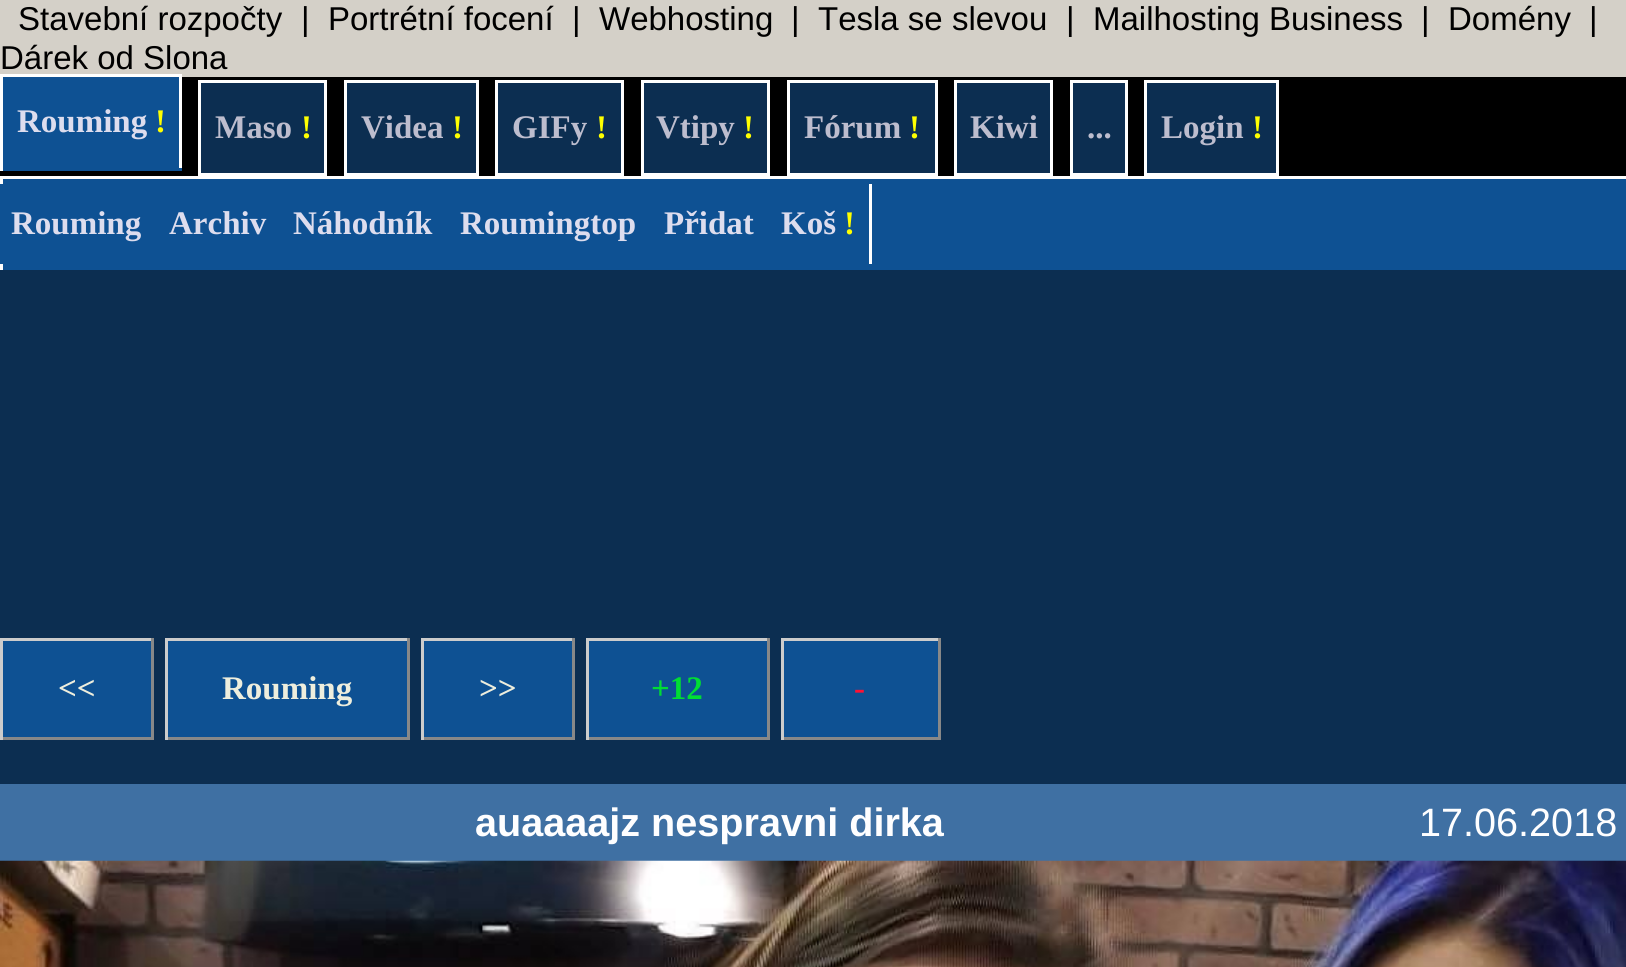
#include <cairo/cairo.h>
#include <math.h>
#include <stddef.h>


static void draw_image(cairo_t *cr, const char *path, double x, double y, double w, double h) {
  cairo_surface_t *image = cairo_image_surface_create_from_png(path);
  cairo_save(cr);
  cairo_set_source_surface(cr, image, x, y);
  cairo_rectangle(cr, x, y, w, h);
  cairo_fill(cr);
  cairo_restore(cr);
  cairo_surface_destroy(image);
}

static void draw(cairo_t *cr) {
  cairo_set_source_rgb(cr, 12 / 255.0, 46 / 255.0, 81 / 255.0);
  cairo_paint(cr);
  cairo_set_source_rgb(cr, 212 / 255.0, 208 / 255.0, 200 / 255.0);
  cairo_rectangle(cr, 0, 0, 1626, 77);
  cairo_fill(cr);
  cairo_set_source_rgb(cr, 0, 0, 0);
  cairo_rectangle(cr, 0, 77, 1626, 99);
  cairo_fill(cr);
  cairo_set_source_rgb(cr, 1, 1, 1);
  cairo_rectangle(cr, 0, 176, 1626, 3);
  cairo_fill(cr);
  cairo_set_source_rgb(cr, 14 / 255.0, 81 / 255.0, 147 / 255.0);
  cairo_rectangle(cr, 3, 77, 176, 91);
  cairo_fill(cr);
  cairo_set_source_rgb(cr, 1, 1, 1);
  cairo_rectangle(cr, 0, 74, 182, 3);
  cairo_fill(cr);
  cairo_rectangle(cr, 179, 74, 3, 97);
  cairo_fill(cr);
  cairo_set_source_rgb(cr, 14 / 255.0, 81 / 255.0, 147 / 255.0);
  cairo_rectangle(cr, 0, 168, 182, 3);
  cairo_fill(cr);
  cairo_set_source_rgb(cr, 1, 1, 1);
  cairo_rectangle(cr, 0, 74, 3, 97);
  cairo_fill(cr);
  cairo_set_source_rgb(cr, 12 / 255.0, 46 / 255.0, 81 / 255.0);
  cairo_rectangle(cr, 199.5, 81.5, 126, 93);
  cairo_fill_preserve(cr);
  cairo_set_source_rgb(cr, 1, 1, 1);
  cairo_set_line_width(cr, 3);
  cairo_stroke(cr);
  cairo_set_source_rgb(cr, 12 / 255.0, 46 / 255.0, 81 / 255.0);
  cairo_rectangle(cr, 345.5, 81.5, 132, 93);
  cairo_fill_preserve(cr);
  cairo_set_source_rgb(cr, 1, 1, 1);
  cairo_stroke(cr);
  cairo_set_source_rgb(cr, 12 / 255.0, 46 / 255.0, 81 / 255.0);
  cairo_rectangle(cr, 496.5, 81.5, 126, 93);
  cairo_fill_preserve(cr);
  cairo_set_source_rgb(cr, 1, 1, 1);
  cairo_stroke(cr);
  cairo_set_source_rgb(cr, 12 / 255.0, 46 / 255.0, 81 / 255.0);
  cairo_rectangle(cr, 642.5, 81.5, 126, 93);
  cairo_fill_preserve(cr);
  cairo_set_source_rgb(cr, 1, 1, 1);
  cairo_stroke(cr);
  cairo_set_source_rgb(cr, 12 / 255.0, 46 / 255.0, 81 / 255.0);
  cairo_rectangle(cr, 788.5, 81.5, 148, 93);
  cairo_fill_preserve(cr);
  cairo_set_source_rgb(cr, 1, 1, 1);
  cairo_stroke(cr);
  cairo_set_source_rgb(cr, 12 / 255.0, 46 / 255.0, 81 / 255.0);
  cairo_rectangle(cr, 955.5, 81.5, 96, 93);
  cairo_fill_preserve(cr);
  cairo_set_source_rgb(cr, 1, 1, 1);
  cairo_stroke(cr);
  cairo_set_source_rgb(cr, 12 / 255.0, 46 / 255.0, 81 / 255.0);
  cairo_rectangle(cr, 1071.5, 81.5, 55, 93);
  cairo_fill_preserve(cr);
  cairo_set_source_rgb(cr, 1, 1, 1);
  cairo_stroke(cr);
  cairo_set_source_rgb(cr, 12 / 255.0, 46 / 255.0, 81 / 255.0);
  cairo_rectangle(cr, 1145.5, 81.5, 132, 93);
  cairo_fill_preserve(cr);
  cairo_set_source_rgb(cr, 1, 1, 1);
  cairo_stroke(cr);
  cairo_set_source_rgb(cr, 14 / 255.0, 81 / 255.0, 147 / 255.0);
  cairo_rectangle(cr, 3, 179, 1623, 91);
  cairo_fill(cr);
  cairo_set_source_rgb(cr, 1, 1, 1);
  cairo_rectangle(cr, 0, 179, 3, 91);
  cairo_fill(cr);
  cairo_set_source_rgb(cr, 14 / 255.0, 81 / 255.0, 147 / 255.0);
  cairo_rectangle(cr, 0, 184, 3, 80);
  cairo_fill(cr);
  cairo_set_source_rgb(cr, 1, 1, 1);
  cairo_rectangle(cr, 869, 184, 3, 80);
  cairo_fill(cr);
  cairo_set_source_rgb(cr, 14 / 255.0, 81 / 255.0, 147 / 255.0);
  cairo_rectangle(cr, 3, 641, 148, 96);
  cairo_fill(cr);
  cairo_set_source_rgb(cr, 204 / 255.0, 204 / 255.0, 204 / 255.0);
  cairo_rectangle(cr, 0, 638, 154, 3);
  cairo_fill(cr);
  cairo_set_source_rgb(cr, 136 / 255.0, 136 / 255.0, 136 / 255.0);
  cairo_rectangle(cr, 151, 638, 3, 102);
  cairo_fill(cr);
  cairo_rectangle(cr, 0, 737, 154, 3);
  cairo_fill(cr);
  cairo_set_source_rgb(cr, 204 / 255.0, 204 / 255.0, 204 / 255.0);
  cairo_rectangle(cr, 0, 638, 3, 102);
  cairo_fill(cr);
  cairo_set_source_rgb(cr, 14 / 255.0, 81 / 255.0, 147 / 255.0);
  cairo_rectangle(cr, 168, 641, 239, 96);
  cairo_fill(cr);
  cairo_set_source_rgb(cr, 204 / 255.0, 204 / 255.0, 204 / 255.0);
  cairo_rectangle(cr, 165, 638, 245, 3);
  cairo_fill(cr);
  cairo_set_source_rgb(cr, 136 / 255.0, 136 / 255.0, 136 / 255.0);
  cairo_rectangle(cr, 407, 638, 3, 102);
  cairo_fill(cr);
  cairo_rectangle(cr, 165, 737, 245, 3);
  cairo_fill(cr);
  cairo_set_source_rgb(cr, 204 / 255.0, 204 / 255.0, 204 / 255.0);
  cairo_rectangle(cr, 165, 638, 3, 102);
  cairo_fill(cr);
  cairo_set_source_rgb(cr, 14 / 255.0, 81 / 255.0, 147 / 255.0);
  cairo_rectangle(cr, 424, 641, 148, 96);
  cairo_fill(cr);
  cairo_set_source_rgb(cr, 204 / 255.0, 204 / 255.0, 204 / 255.0);
  cairo_rectangle(cr, 421, 638, 154, 3);
  cairo_fill(cr);
  cairo_set_source_rgb(cr, 136 / 255.0, 136 / 255.0, 136 / 255.0);
  cairo_rectangle(cr, 572, 638, 3, 102);
  cairo_fill(cr);
  cairo_rectangle(cr, 421, 737, 154, 3);
  cairo_fill(cr);
  cairo_set_source_rgb(cr, 204 / 255.0, 204 / 255.0, 204 / 255.0);
  cairo_rectangle(cr, 421, 638, 3, 102);
  cairo_fill(cr);
  cairo_set_source_rgb(cr, 14 / 255.0, 81 / 255.0, 147 / 255.0);
  cairo_rectangle(cr, 589, 641, 178, 96);
  cairo_fill(cr);
  cairo_set_source_rgb(cr, 204 / 255.0, 204 / 255.0, 204 / 255.0);
  cairo_rectangle(cr, 586, 638, 184, 3);
  cairo_fill(cr);
  cairo_set_source_rgb(cr, 136 / 255.0, 136 / 255.0, 136 / 255.0);
  cairo_rectangle(cr, 767, 638, 3, 102);
  cairo_fill(cr);
  cairo_rectangle(cr, 586, 737, 184, 3);
  cairo_fill(cr);
  cairo_set_source_rgb(cr, 204 / 255.0, 204 / 255.0, 204 / 255.0);
  cairo_rectangle(cr, 586, 638, 3, 102);
  cairo_fill(cr);
  cairo_set_source_rgb(cr, 14 / 255.0, 81 / 255.0, 147 / 255.0);
  cairo_rectangle(cr, 784, 641, 154, 96);
  cairo_fill(cr);
  cairo_set_source_rgb(cr, 204 / 255.0, 204 / 255.0, 204 / 255.0);
  cairo_rectangle(cr, 781, 638, 160, 3);
  cairo_fill(cr);
  cairo_set_source_rgb(cr, 136 / 255.0, 136 / 255.0, 136 / 255.0);
  cairo_rectangle(cr, 938, 638, 3, 102);
  cairo_fill(cr);
  cairo_rectangle(cr, 781, 737, 160, 3);
  cairo_fill(cr);
  cairo_set_source_rgb(cr, 204 / 255.0, 204 / 255.0, 204 / 255.0);
  cairo_rectangle(cr, 781, 638, 3, 102);
  cairo_fill(cr);
  cairo_set_source_rgb(cr, 63 / 255.0, 112 / 255.0, 163 / 255.0);
  cairo_rectangle(cr, 0, 784, 1626, 77);
  cairo_fill(cr);
  draw_image(cr, "images/1.png", 0, 860, 1626, 107);
  cairo_select_font_face(cr, "Liberation Sans", CAIRO_FONT_SLANT_NORMAL, CAIRO_FONT_WEIGHT_NORMAL);
  cairo_set_font_size(cr, 33);
  cairo_set_source_rgb(cr, 0, 0, 0);
  cairo_move_to(cr, 18, 30);
  cairo_show_text(cr, "Stavební rozpočty");
  cairo_move_to(cr, 301, 30);
  cairo_show_text(cr, "|");
  cairo_move_to(cr, 328, 30);
  cairo_show_text(cr, "Portrétní focení");
  cairo_move_to(cr, 572, 30);
  cairo_show_text(cr, "|");
  cairo_move_to(cr, 599, 30);
  cairo_show_text(cr, "Webhosting");
  cairo_move_to(cr, 791, 30);
  cairo_show_text(cr, "|");
  cairo_move_to(cr, 818, 30);
  cairo_show_text(cr, "Tesla se slevou");
  cairo_move_to(cr, 1066, 30);
  cairo_show_text(cr, "|");
  cairo_move_to(cr, 1093, 30);
  cairo_show_text(cr, "Mailhosting Business");
  cairo_move_to(cr, 1421, 30);
  cairo_show_text(cr, "|");
  cairo_move_to(cr, 1448, 30);
  cairo_show_text(cr, "Domény");
  cairo_move_to(cr, 1589, 30);
  cairo_show_text(cr, "|");
  cairo_move_to(cr, 0, 69);
  cairo_show_text(cr, "Dárek od Slona");
  cairo_select_font_face(cr, "Liberation Serif", CAIRO_FONT_SLANT_NORMAL, CAIRO_FONT_WEIGHT_BOLD);
  cairo_set_source_rgb(cr, 221 / 255.0, 221 / 255.0, 238 / 255.0);
  cairo_move_to(cr, 17, 132);
  cairo_show_text(cr, "Rouming");
  cairo_set_source_rgb(cr, 1, 1, 0);
  cairo_move_to(cr, 155, 132);
  cairo_show_text(cr, "!");
  cairo_set_source_rgb(cr, 189 / 255.0, 189 / 255.0, 206 / 255.0);
  cairo_move_to(cr, 215, 138);
  cairo_show_text(cr, "Maso");
  cairo_set_source_rgb(cr, 1, 1, 0);
  cairo_move_to(cr, 301, 138);
  cairo_show_text(cr, "!");
  cairo_set_source_rgb(cr, 189 / 255.0, 189 / 255.0, 206 / 255.0);
  cairo_move_to(cr, 361, 138);
  cairo_show_text(cr, "Videa");
  cairo_set_source_rgb(cr, 1, 1, 0);
  cairo_move_to(cr, 452, 138);
  cairo_show_text(cr, "!");
  cairo_set_source_rgb(cr, 189 / 255.0, 189 / 255.0, 206 / 255.0);
  cairo_move_to(cr, 512, 138);
  cairo_show_text(cr, "GIFy");
  cairo_set_source_rgb(cr, 1, 1, 0);
  cairo_move_to(cr, 596, 138);
  cairo_show_text(cr, "!");
  cairo_set_source_rgb(cr, 189 / 255.0, 189 / 255.0, 206 / 255.0);
  cairo_move_to(cr, 656, 138);
  cairo_show_text(cr, "Vtipy");
  cairo_set_source_rgb(cr, 1, 1, 0);
  cairo_move_to(cr, 743, 138);
  cairo_show_text(cr, "!");
  cairo_set_source_rgb(cr, 189 / 255.0, 189 / 255.0, 206 / 255.0);
  cairo_move_to(cr, 804, 138);
  cairo_show_text(cr, "Fórum");
  cairo_set_source_rgb(cr, 1, 1, 0);
  cairo_move_to(cr, 909, 138);
  cairo_show_text(cr, "!");
  cairo_set_source_rgb(cr, 189 / 255.0, 189 / 255.0, 206 / 255.0);
  cairo_move_to(cr, 970, 138);
  cairo_show_text(cr, "Kiwi");
  cairo_move_to(cr, 1087, 138);
  cairo_show_text(cr, "...");
  cairo_move_to(cr, 1161, 138);
  cairo_show_text(cr, "Login");
  cairo_set_source_rgb(cr, 1, 1, 0);
  cairo_move_to(cr, 1252, 138);
  cairo_show_text(cr, "!");
  cairo_set_source_rgb(cr, 221 / 255.0, 221 / 255.0, 238 / 255.0);
  cairo_move_to(cr, 11, 234);
  cairo_show_text(cr, "Rouming");
  cairo_move_to(cr, 169, 234);
  cairo_show_text(cr, "Archiv");
  cairo_move_to(cr, 293, 234);
  cairo_show_text(cr, "Náhodník");
  cairo_move_to(cr, 460, 234);
  cairo_show_text(cr, "Roumingtop");
  cairo_move_to(cr, 664, 234);
  cairo_show_text(cr, "Přidat");
  cairo_move_to(cr, 781, 234);
  cairo_show_text(cr, "Koš");
  cairo_set_source_rgb(cr, 1, 1, 0);
  cairo_move_to(cr, 844, 234);
  cairo_show_text(cr, "!");
  cairo_set_source_rgb(cr, 238 / 255.0, 238 / 255.0, 221 / 255.0);
  cairo_move_to(cr, 58, 699);
  cairo_show_text(cr, "<<");
  cairo_move_to(cr, 222, 699);
  cairo_show_text(cr, "Rouming");
  cairo_move_to(cr, 479, 699);
  cairo_show_text(cr, ">>");
  cairo_set_source_rgb(cr, 0, 221 / 255.0, 51 / 255.0);
  cairo_move_to(cr, 651, 699);
  cairo_show_text(cr, "+12");
  cairo_set_source_rgb(cr, 1, 17 / 255.0, 51 / 255.0);
  cairo_move_to(cr, 854, 699);
  cairo_show_text(cr, "-");
  cairo_select_font_face(cr, "Liberation Sans", CAIRO_FONT_SLANT_NORMAL, CAIRO_FONT_WEIGHT_BOLD);
  cairo_set_font_size(cr, 39.6);
  cairo_set_source_rgb(cr, 254 / 255.0, 254 / 255.0, 1);
  cairo_move_to(cr, 475, 836);
  cairo_show_text(cr, "auaaaajz nespravni dirka");
  cairo_select_font_face(cr, "Liberation Sans", CAIRO_FONT_SLANT_NORMAL, CAIRO_FONT_WEIGHT_NORMAL);
  cairo_move_to(cr, 1419, 836);
  cairo_show_text(cr, "17.06.2018");
}

int main(void) {
  cairo_surface_t *surface = cairo_image_surface_create(CAIRO_FORMAT_RGB24, 1626, 967);
  cairo_t *cr = cairo_create(surface);
  cairo_font_options_t *options = cairo_font_options_create();
  cairo_font_options_set_hint_metrics(options, CAIRO_HINT_METRICS_OFF);
  cairo_font_options_set_hint_style(options, CAIRO_HINT_STYLE_NONE);
  cairo_set_font_options(cr, options);
  cairo_set_miter_limit(cr, 4);
  draw(cr);
  cairo_surface_write_to_png(surface, "out.png");
  cairo_font_options_destroy(options);
  cairo_destroy(cr);
  cairo_surface_destroy(surface);
  return 0;
}
